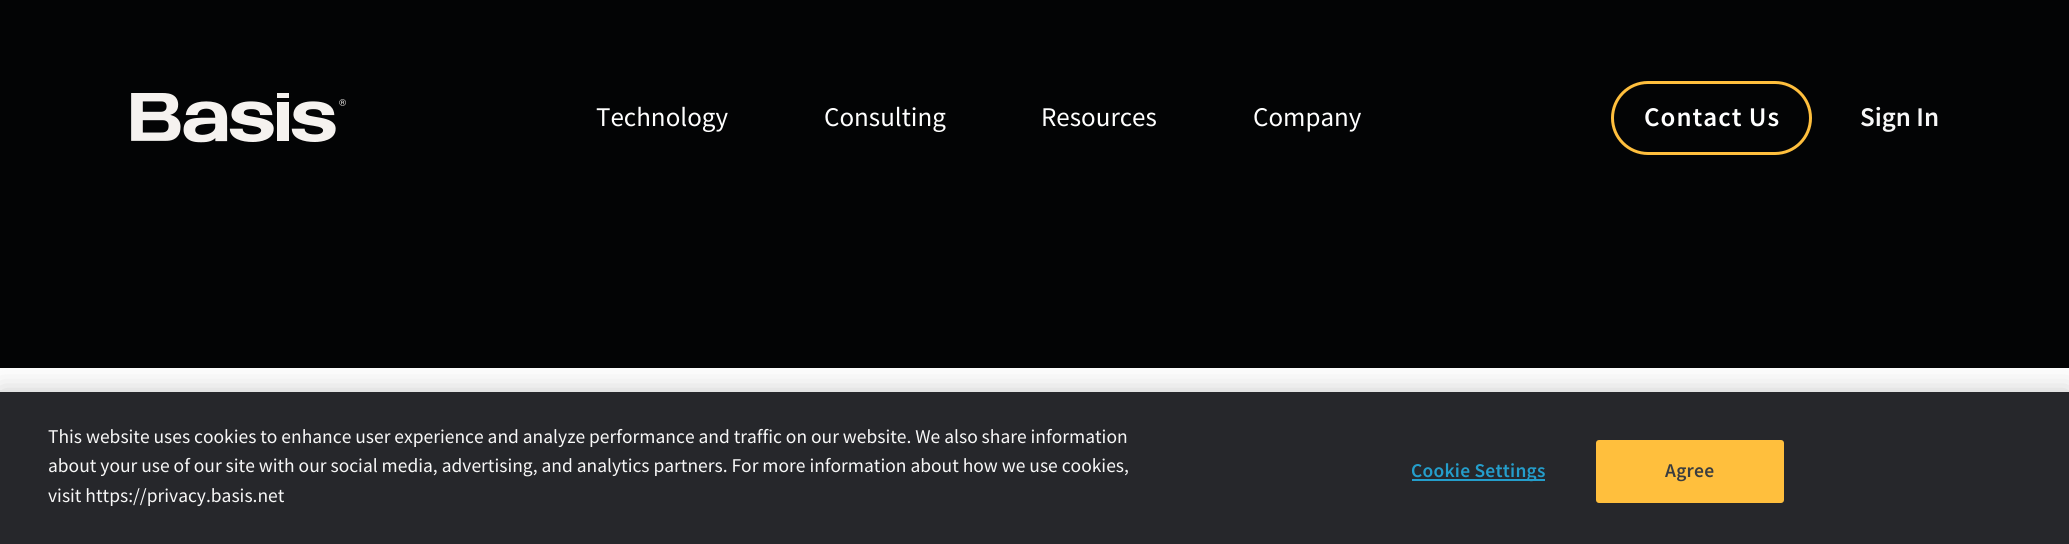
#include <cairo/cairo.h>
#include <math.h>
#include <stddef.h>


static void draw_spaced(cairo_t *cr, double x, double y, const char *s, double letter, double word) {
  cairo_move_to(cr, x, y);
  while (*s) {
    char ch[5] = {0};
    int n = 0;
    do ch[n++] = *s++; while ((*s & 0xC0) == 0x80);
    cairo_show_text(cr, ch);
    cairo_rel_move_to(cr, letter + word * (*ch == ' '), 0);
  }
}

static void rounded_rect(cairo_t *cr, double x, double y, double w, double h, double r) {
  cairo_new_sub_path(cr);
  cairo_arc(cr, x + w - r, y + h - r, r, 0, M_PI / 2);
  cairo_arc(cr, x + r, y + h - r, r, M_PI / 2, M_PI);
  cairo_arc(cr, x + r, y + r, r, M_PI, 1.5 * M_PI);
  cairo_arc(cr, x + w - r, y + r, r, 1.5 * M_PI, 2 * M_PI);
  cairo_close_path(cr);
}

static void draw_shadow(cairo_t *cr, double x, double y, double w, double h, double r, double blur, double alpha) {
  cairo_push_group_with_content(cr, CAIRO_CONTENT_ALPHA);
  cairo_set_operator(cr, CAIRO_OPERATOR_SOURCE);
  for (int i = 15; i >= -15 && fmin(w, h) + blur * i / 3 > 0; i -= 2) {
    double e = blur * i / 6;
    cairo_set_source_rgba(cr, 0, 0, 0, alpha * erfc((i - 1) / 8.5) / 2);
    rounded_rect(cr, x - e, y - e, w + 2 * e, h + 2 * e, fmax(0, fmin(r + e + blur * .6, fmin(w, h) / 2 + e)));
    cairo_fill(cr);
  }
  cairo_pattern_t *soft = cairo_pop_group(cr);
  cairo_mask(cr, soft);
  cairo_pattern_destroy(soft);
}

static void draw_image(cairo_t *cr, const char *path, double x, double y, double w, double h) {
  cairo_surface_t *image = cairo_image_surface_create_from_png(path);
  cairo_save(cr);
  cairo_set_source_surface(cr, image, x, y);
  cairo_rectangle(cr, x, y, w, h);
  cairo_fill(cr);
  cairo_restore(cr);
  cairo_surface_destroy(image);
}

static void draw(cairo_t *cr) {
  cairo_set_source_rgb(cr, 1, 1, 1);
  cairo_paint(cr);
  cairo_set_source_rgb(cr, 3 / 255.0, 4 / 255.0, 5 / 255.0);
  cairo_rectangle(cr, 0, 0, 2069, 368);
  cairo_fill(cr);
  draw_image(cr, "images/1.png", 131, 93, 215, 50);
  rounded_rect(cr, 1612.5, 82.5, 198, 71, 35.5);
  cairo_set_source_rgb(cr, 1, 191 / 255.0, 61 / 255.0);
  cairo_set_line_width(cr, 3);
  cairo_stroke(cr);
  cairo_set_source_rgb(cr, 0, 0, 0);
  draw_shadow(cr, 0, 390, 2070, 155, 0, 13.5, 0.2);
  cairo_set_source_rgb(cr, 38 / 255.0, 39 / 255.0, 43 / 255.0);
  cairo_rectangle(cr, 0, 392, 2069, 152);
  cairo_fill(cr);
  cairo_set_source_rgb(cr, 226 / 255.0, 226 / 255.0, 226 / 255.0);
  cairo_rectangle(cr, 0, 390, 2069, 2);
  cairo_fill(cr);
  cairo_set_source_rgb(cr, 36 / 255.0, 158 / 255.0, 203 / 255.0);
  cairo_rectangle(cr, 1412, 479, 133, 2);
  cairo_fill(cr);
  cairo_set_source_rgb(cr, 1, 191 / 255.0, 61 / 255.0);
  rounded_rect(cr, 1597, 441, 186, 61, 2);
  cairo_fill_preserve(cr);
  cairo_set_line_width(cr, 2);
  cairo_stroke(cr);
  cairo_select_font_face(cr, "Source Sans Pro", CAIRO_FONT_SLANT_NORMAL, CAIRO_FONT_WEIGHT_NORMAL);
  cairo_set_font_size(cr, 27);
  cairo_set_source_rgb(cr, 1, 1, 1);
  cairo_move_to(cr, 596, 126);
  cairo_show_text(cr, "Technology");
  cairo_move_to(cr, 824, 126);
  cairo_show_text(cr, "Consulting");
  cairo_move_to(cr, 1041, 126);
  cairo_show_text(cr, "Resources");
  cairo_move_to(cr, 1253, 126);
  cairo_show_text(cr, "Company");
  cairo_select_font_face(cr, "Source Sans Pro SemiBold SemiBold", CAIRO_FONT_SLANT_NORMAL, CAIRO_FONT_WEIGHT_NORMAL);
  draw_spaced(cr, 1644, 126, "Contact Us", 1, 0);
  cairo_set_source_rgb(cr, 247 / 255.0, 247 / 255.0, 247 / 255.0);
  cairo_move_to(cr, 1860, 126);
  cairo_show_text(cr, "Sign In");
  cairo_select_font_face(cr, "Source Sans Pro", CAIRO_FONT_SLANT_NORMAL, CAIRO_FONT_WEIGHT_NORMAL);
  cairo_set_font_size(cr, 19.5);
  cairo_move_to(cr, 48, 443);
  cairo_show_text(cr, "This website uses cookies to enhance user experience and analyze performance and traffic on our website. We also share information");
  cairo_move_to(cr, 48, 472);
  cairo_show_text(cr, "about your use of our site with our social media, advertising, and analytics partners. For more information about how we use cookies,");
  cairo_move_to(cr, 48, 502);
  cairo_show_text(cr, "visit https://privacy.basis.net");
  cairo_select_font_face(cr, "Source Sans Pro SemiBold SemiBold", CAIRO_FONT_SLANT_NORMAL, CAIRO_FONT_WEIGHT_NORMAL);
  cairo_set_source_rgb(cr, 36 / 255.0, 158 / 255.0, 203 / 255.0);
  draw_spaced(cr, 1411, 477, "Cookie Settings", 0.25, 0);
  cairo_set_source_rgb(cr, 58 / 255.0, 61 / 255.0, 63 / 255.0);
  draw_spaced(cr, 1665, 477, "Agree", 0.25, 0);
}

int main(void) {
  cairo_surface_t *surface = cairo_image_surface_create(CAIRO_FORMAT_RGB24, 2069, 544);
  cairo_t *cr = cairo_create(surface);
  cairo_font_options_t *options = cairo_font_options_create();
  cairo_font_options_set_hint_metrics(options, CAIRO_HINT_METRICS_OFF);
  cairo_font_options_set_hint_style(options, CAIRO_HINT_STYLE_NONE);
  cairo_set_font_options(cr, options);
  cairo_set_miter_limit(cr, 4);
  draw(cr);
  cairo_surface_write_to_png(surface, "out.png");
  cairo_font_options_destroy(options);
  cairo_destroy(cr);
  cairo_surface_destroy(surface);
  return 0;
}
